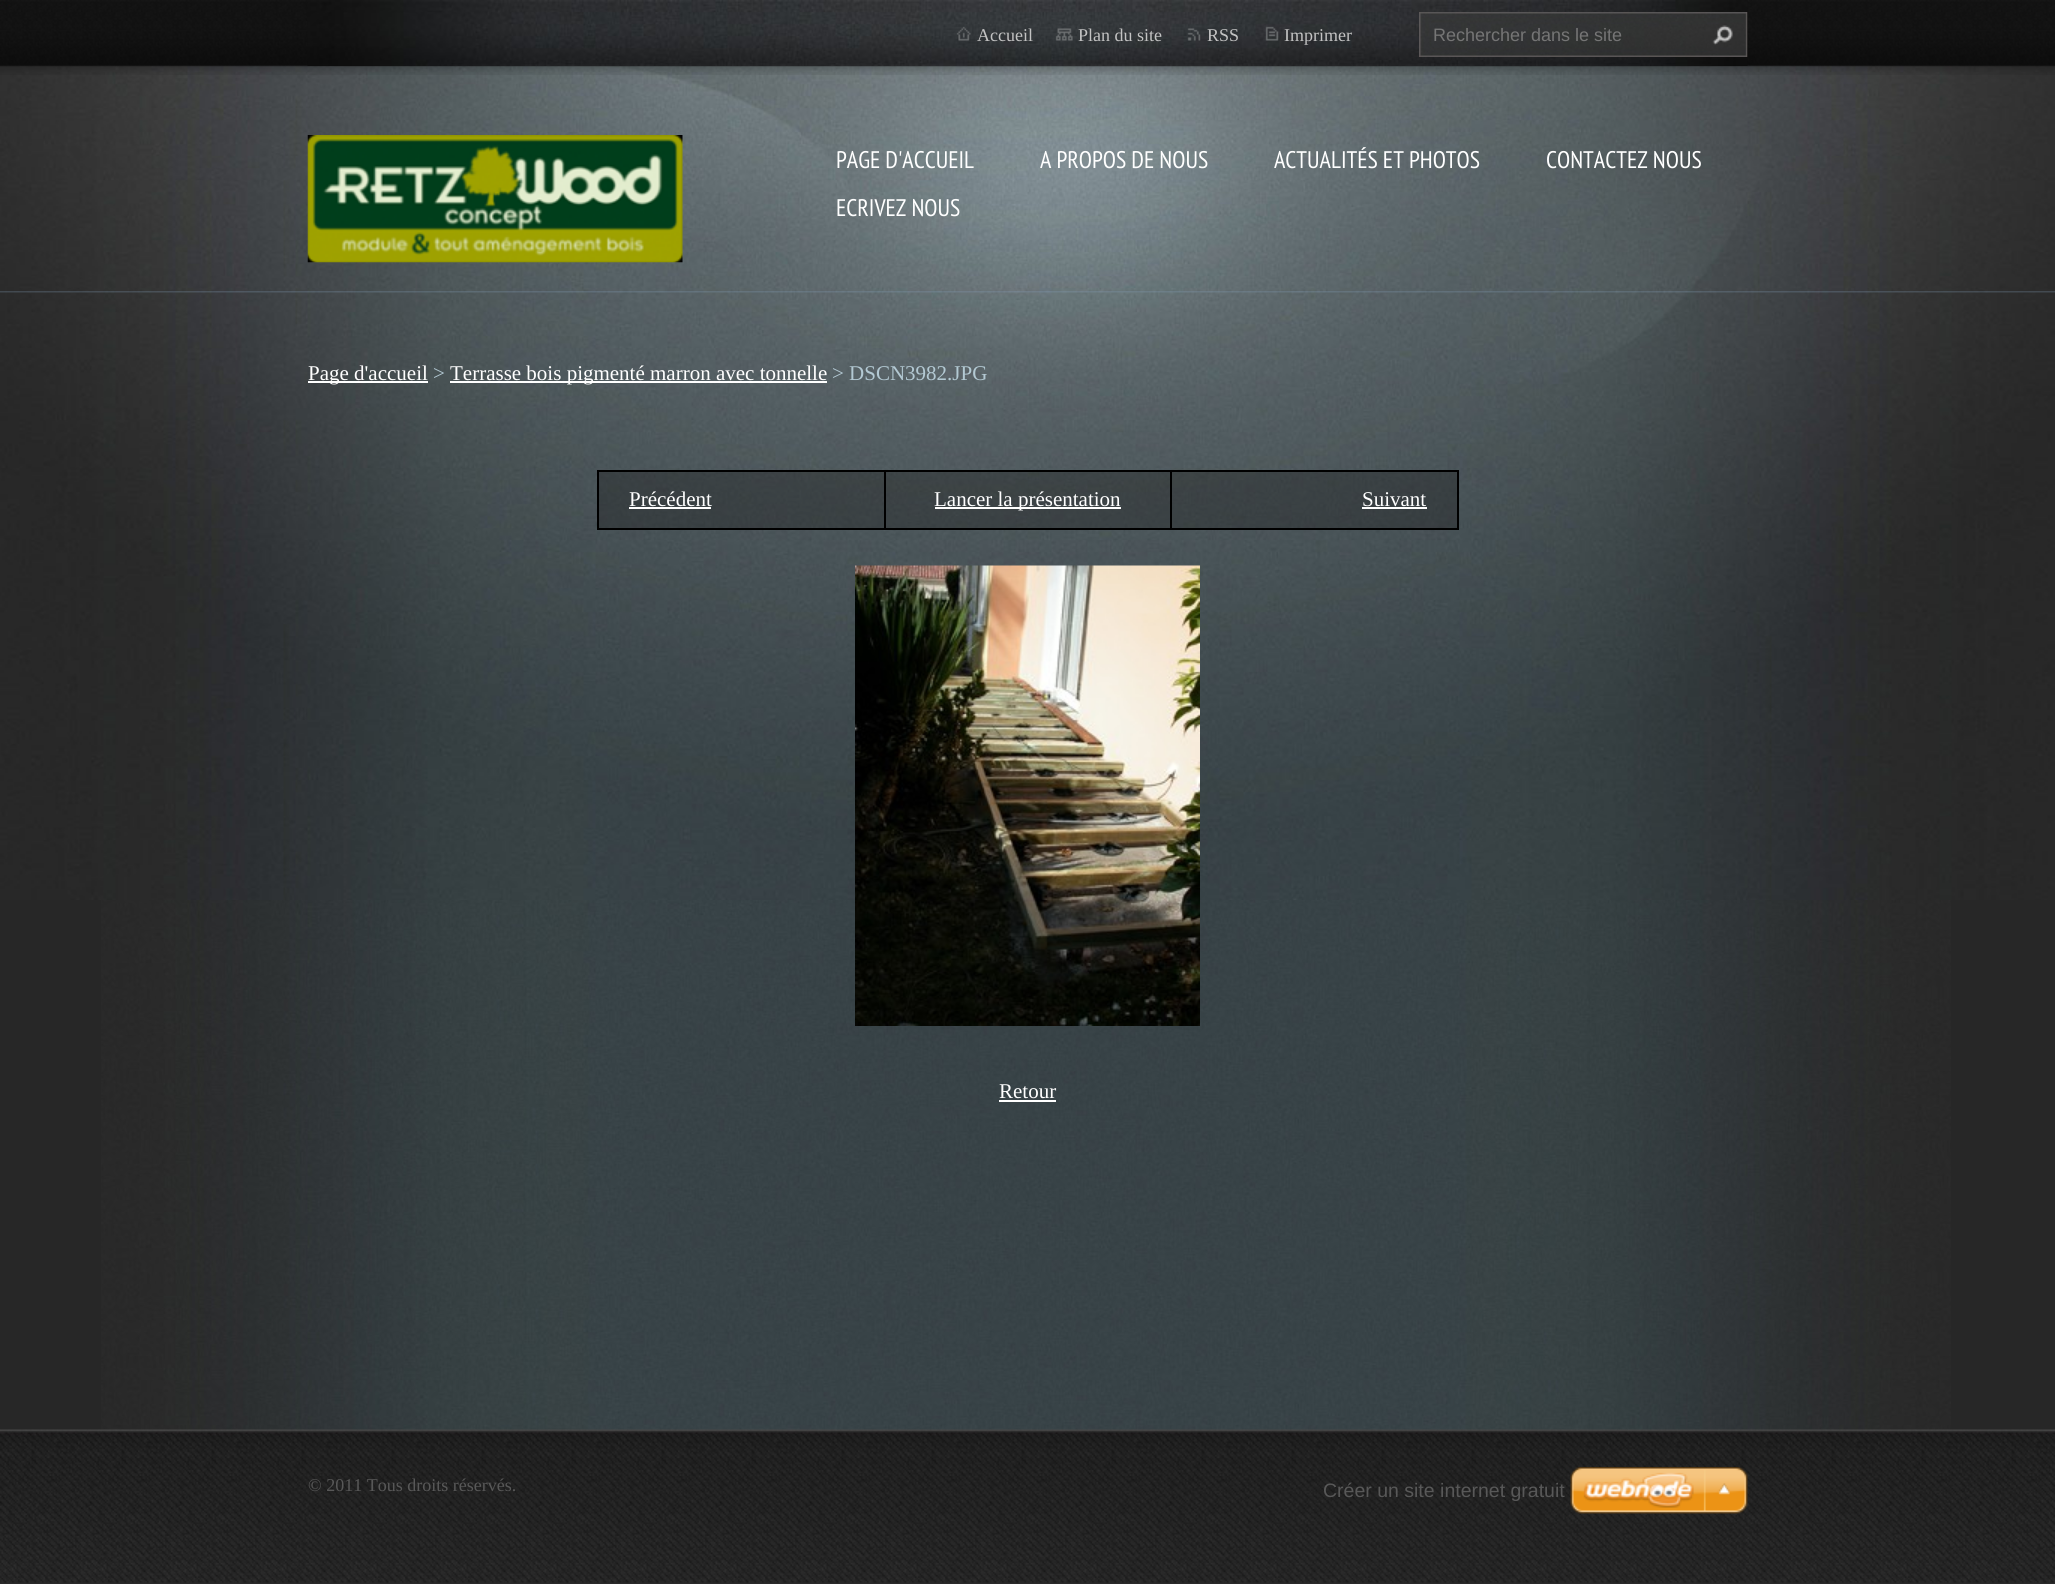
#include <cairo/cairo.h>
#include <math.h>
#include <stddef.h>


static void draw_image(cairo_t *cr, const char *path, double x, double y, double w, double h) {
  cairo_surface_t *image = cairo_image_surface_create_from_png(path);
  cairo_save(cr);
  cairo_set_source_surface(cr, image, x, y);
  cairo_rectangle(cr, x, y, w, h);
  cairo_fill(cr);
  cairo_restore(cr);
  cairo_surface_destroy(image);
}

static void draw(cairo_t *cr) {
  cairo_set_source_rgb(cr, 39 / 255.0, 39 / 255.0, 39 / 255.0);
  cairo_paint(cr);
  draw_image(cr, "images/1.png", 101, 900, 1850, 530);
  draw_image(cr, "images/2.png", 0, 65, 2055, 835);
  draw_image(cr, "images/3.png", 0, 291, 2055, 2);
  draw_image(cr, "images/4.png", 0, 0, 2055, 75);
  draw_image(cr, "images/5.png", 307, 0, 1441, 66);
  draw_image(cr, "images/6.png", 956, 26, 15, 15);
  draw_image(cr, "images/7.png", 1055, 28, 18, 13);
  draw_image(cr, "images/8.png", 1187, 28, 14, 13);
  draw_image(cr, "images/9.png", 1265, 26, 14, 15);
  draw_image(cr, "images/10.png", 1419, 12, 329, 45);
  draw_image(cr, "images/11.png", 1712, 25, 21, 20);
  draw_image(cr, "images/12.png", 307, 135, 376, 128);
  cairo_set_source_rgb(cr, 1, 1, 1);
  cairo_rectangle(cr, 308, 381, 120, 2);
  cairo_fill(cr);
  cairo_rectangle(cr, 450, 381, 377, 2);
  cairo_fill(cr);
  cairo_set_source_rgb(cr, 0, 0, 0);
  cairo_rectangle(cr, 597, 470, 861, 2);
  cairo_fill(cr);
  cairo_rectangle(cr, 597, 470, 2, 60);
  cairo_fill(cr);
  cairo_set_source_rgba(cr, 28 / 255.0, 28 / 255.0, 28 / 255.0, 0.36);
  cairo_rectangle(cr, 599, 472, 285, 56);
  cairo_fill(cr);
  cairo_set_source_rgb(cr, 0, 0, 0);
  cairo_rectangle(cr, 1457, 470, 2, 60);
  cairo_fill(cr);
  cairo_rectangle(cr, 1170, 528, 288, 2);
  cairo_fill(cr);
  cairo_rectangle(cr, 1170, 470, 2, 60);
  cairo_fill(cr);
  cairo_rectangle(cr, 884, 528, 288, 2);
  cairo_fill(cr);
  cairo_rectangle(cr, 884, 470, 2, 60);
  cairo_fill(cr);
  cairo_rectangle(cr, 597, 528, 288, 2);
  cairo_fill(cr);
  cairo_set_source_rgb(cr, 1, 1, 1);
  cairo_rectangle(cr, 629, 507, 82, 2);
  cairo_fill(cr);
  cairo_set_source_rgba(cr, 28 / 255.0, 28 / 255.0, 28 / 255.0, 0.36);
  cairo_rectangle(cr, 886, 472, 284, 56);
  cairo_fill(cr);
  cairo_set_source_rgb(cr, 1, 1, 1);
  cairo_rectangle(cr, 935, 507, 186, 2);
  cairo_fill(cr);
  cairo_set_source_rgba(cr, 28 / 255.0, 28 / 255.0, 28 / 255.0, 0.36);
  cairo_rectangle(cr, 1172, 472, 285, 56);
  cairo_fill(cr);
  cairo_set_source_rgb(cr, 1, 1, 1);
  cairo_rectangle(cr, 1362, 507, 65, 2);
  cairo_fill(cr);
  draw_image(cr, "images/13.png", 855, 565, 345, 461);
  cairo_rectangle(cr, 999, 1100, 57, 2);
  cairo_fill(cr);
  cairo_set_source_rgb(cr, 42 / 255.0, 42 / 255.0, 42 / 255.0);
  cairo_rectangle(cr, 0, 1583, 2055, 1);
  cairo_fill(cr);
  draw_image(cr, "images/14.png", 0, 1429, 2055, 154);
  draw_image(cr, "images/15.png", 1570, 1467, 178, 47);
  cairo_select_font_face(cr, "Liberation Serif", CAIRO_FONT_SLANT_NORMAL, CAIRO_FONT_WEIGHT_NORMAL);
  cairo_set_font_size(cr, 18);
  cairo_set_source_rgb(cr, 195 / 255.0, 195 / 255.0, 195 / 255.0);
  cairo_move_to(cr, 977, 41);
  cairo_show_text(cr, "Accueil");
  cairo_move_to(cr, 1078, 41);
  cairo_show_text(cr, "Plan du site");
  cairo_move_to(cr, 1207, 41);
  cairo_show_text(cr, "RSS");
  cairo_move_to(cr, 1284, 41);
  cairo_show_text(cr, "Imprimer");
  cairo_select_font_face(cr, "Liberation Sans", CAIRO_FONT_SLANT_NORMAL, CAIRO_FONT_WEIGHT_NORMAL);
  cairo_set_source_rgb(cr, 117 / 255.0, 117 / 255.0, 117 / 255.0);
  cairo_move_to(cr, 1433, 41);
  cairo_show_text(cr, "Rechercher dans le site");
  cairo_select_font_face(cr, "PT Sans Narrow", CAIRO_FONT_SLANT_NORMAL, CAIRO_FONT_WEIGHT_NORMAL);
  cairo_set_font_size(cr, 24);
  cairo_set_source_rgb(cr, 1, 1, 1);
  cairo_move_to(cr, 836, 168);
  cairo_show_text(cr, "PAGE D'ACCUEIL");
  cairo_move_to(cr, 1040, 168);
  cairo_show_text(cr, "A PROPOS DE NOUS");
  cairo_move_to(cr, 1274, 168);
  cairo_show_text(cr, "ACTUALITÉS ET PHOTOS");
  cairo_move_to(cr, 1546, 168);
  cairo_show_text(cr, "CONTACTEZ NOUS");
  cairo_move_to(cr, 836, 216);
  cairo_show_text(cr, "ECRIVEZ NOUS");
  cairo_select_font_face(cr, "Liberation Serif", CAIRO_FONT_SLANT_NORMAL, CAIRO_FONT_WEIGHT_NORMAL);
  cairo_set_font_size(cr, 21);
  cairo_move_to(cr, 308, 380);
  cairo_show_text(cr, "Page d'accueil");
  cairo_set_source_rgb(cr, 179 / 255.0, 201 / 255.0, 211 / 255.0);
  cairo_move_to(cr, 433, 380);
  cairo_show_text(cr, ">");
  cairo_set_source_rgb(cr, 1, 1, 1);
  cairo_move_to(cr, 450, 380);
  cairo_show_text(cr, "Terrasse bois pigmenté marron avec tonnelle");
  cairo_set_source_rgb(cr, 179 / 255.0, 201 / 255.0, 211 / 255.0);
  cairo_move_to(cr, 832, 380);
  cairo_show_text(cr, "> DSCN3982.JPG");
  cairo_set_source_rgb(cr, 1, 1, 1);
  cairo_move_to(cr, 629, 506);
  cairo_show_text(cr, "Précédent");
  cairo_move_to(cr, 934, 506);
  cairo_show_text(cr, "Lancer la présentation");
  cairo_move_to(cr, 1362, 506);
  cairo_show_text(cr, "Suivant");
  cairo_move_to(cr, 999, 1098);
  cairo_show_text(cr, "Retour");
  cairo_set_font_size(cr, 18);
  cairo_set_source_rgb(cr, 88 / 255.0, 88 / 255.0, 88 / 255.0);
  cairo_move_to(cr, 308, 1491);
  cairo_show_text(cr, "© 2011 Tous droits réservés.");
  cairo_select_font_face(cr, "Liberation Sans", CAIRO_FONT_SLANT_NORMAL, CAIRO_FONT_WEIGHT_NORMAL);
  cairo_set_font_size(cr, 19.5);
  cairo_move_to(cr, 1323, 1497);
  cairo_show_text(cr, "Créer un site internet gratuit");
}

int main(void) {
  cairo_surface_t *surface = cairo_image_surface_create(CAIRO_FORMAT_RGB24, 2055, 1584);
  cairo_t *cr = cairo_create(surface);
  cairo_font_options_t *options = cairo_font_options_create();
  cairo_font_options_set_hint_metrics(options, CAIRO_HINT_METRICS_OFF);
  cairo_font_options_set_hint_style(options, CAIRO_HINT_STYLE_NONE);
  cairo_set_font_options(cr, options);
  cairo_set_miter_limit(cr, 4);
  draw(cr);
  cairo_surface_write_to_png(surface, "out.png");
  cairo_font_options_destroy(options);
  cairo_destroy(cr);
  cairo_surface_destroy(surface);
  return 0;
}
